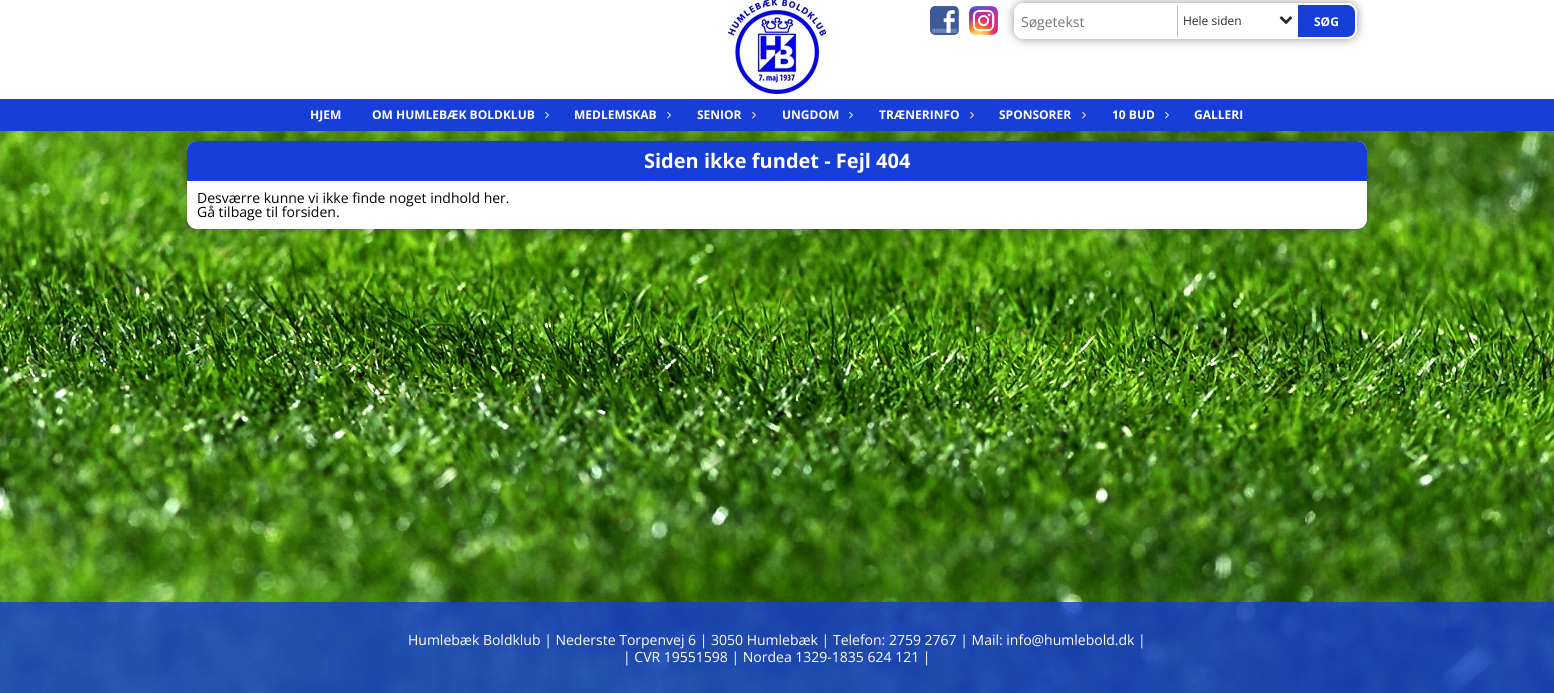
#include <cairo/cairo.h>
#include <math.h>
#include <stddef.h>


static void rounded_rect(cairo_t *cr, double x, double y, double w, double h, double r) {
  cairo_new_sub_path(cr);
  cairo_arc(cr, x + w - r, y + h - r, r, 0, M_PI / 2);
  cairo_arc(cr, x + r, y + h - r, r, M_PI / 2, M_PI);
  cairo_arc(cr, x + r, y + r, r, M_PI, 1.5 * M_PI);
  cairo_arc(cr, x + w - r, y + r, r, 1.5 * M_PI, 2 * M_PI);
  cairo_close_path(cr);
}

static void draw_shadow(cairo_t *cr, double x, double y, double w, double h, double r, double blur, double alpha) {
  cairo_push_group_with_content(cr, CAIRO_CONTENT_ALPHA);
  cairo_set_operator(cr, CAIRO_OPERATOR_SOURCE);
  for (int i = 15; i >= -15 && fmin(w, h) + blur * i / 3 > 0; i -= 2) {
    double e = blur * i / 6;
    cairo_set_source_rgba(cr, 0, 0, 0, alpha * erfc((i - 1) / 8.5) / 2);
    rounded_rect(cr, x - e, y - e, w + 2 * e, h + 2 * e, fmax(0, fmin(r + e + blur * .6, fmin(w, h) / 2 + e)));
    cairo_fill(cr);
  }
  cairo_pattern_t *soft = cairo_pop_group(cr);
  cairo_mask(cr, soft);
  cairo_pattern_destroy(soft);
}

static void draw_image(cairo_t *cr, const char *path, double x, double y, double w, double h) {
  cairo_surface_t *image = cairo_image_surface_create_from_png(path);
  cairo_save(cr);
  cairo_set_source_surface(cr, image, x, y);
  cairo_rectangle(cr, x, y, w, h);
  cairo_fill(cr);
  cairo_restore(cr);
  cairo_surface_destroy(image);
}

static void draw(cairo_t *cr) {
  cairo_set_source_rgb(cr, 1, 1, 1);
  cairo_paint(cr);
  draw_image(cr, "images/1.png", 728, 0, 98, 94);
  draw_image(cr, "images/2.png", 930, 6, 29, 29);
  draw_image(cr, "images/3.png", 969, 6, 29, 29);
  cairo_save(cr);
  cairo_set_fill_rule(cr, CAIRO_FILL_RULE_EVEN_ODD);
  cairo_new_path(cr);
  cairo_move_to(cr, 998, 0);
  cairo_line_to(cr, 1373, 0);
  cairo_line_to(cr, 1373, 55);
  cairo_line_to(cr, 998, 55);
  cairo_close_path(cr);
  cairo_move_to(cr, 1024, 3);
  cairo_line_to(cr, 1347, 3);
  cairo_curve_to(cr, 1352.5, 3, 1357, 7.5, 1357, 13);
  cairo_line_to(cr, 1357, 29);
  cairo_curve_to(cr, 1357, 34.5, 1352.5, 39, 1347, 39);
  cairo_line_to(cr, 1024, 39);
  cairo_curve_to(cr, 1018.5, 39, 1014, 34.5, 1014, 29);
  cairo_line_to(cr, 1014, 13);
  cairo_curve_to(cr, 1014, 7.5, 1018.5, 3, 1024, 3);
  cairo_close_path(cr);
  cairo_clip(cr);
  cairo_set_source_rgb(cr, 48 / 255.0, 48 / 255.0, 48 / 255.0);
  draw_shadow(cr, 1014, 3, 343, 36, 10, 5, 0.5);
  cairo_restore(cr);
  rounded_rect(cr, 1015, 4, 341, 34, 9);
  cairo_set_source_rgb(cr, 1, 1, 1);
  cairo_stroke(cr);
  cairo_set_source_rgb(cr, 194 / 255.0, 194 / 255.0, 194 / 255.0);
  cairo_rectangle(cr, 1177, 5, 1, 32);
  cairo_fill(cr);
  draw_image(cr, "images/4.png", 1279, 16, 14, 9);
  cairo_set_source_rgb(cr, 23 / 255.0, 62 / 255.0, 214 / 255.0);
  cairo_new_path(cr);
  cairo_move_to(cr, 1298, 5);
  cairo_line_to(cr, 1347, 5);
  cairo_curve_to(cr, 1351.5, 5, 1355, 8.5, 1355, 13);
  cairo_line_to(cr, 1355, 29);
  cairo_curve_to(cr, 1355, 33.5, 1351.5, 37, 1347, 37);
  cairo_line_to(cr, 1298, 37);
  cairo_close_path(cr);
  cairo_fill(cr);
  cairo_rectangle(cr, 0, 99, 1554, 32);
  cairo_fill(cr);
  draw_image(cr, "images/5.png", 545, 111, 4, 8);
  draw_image(cr, "images/5.png", 667, 111, 4, 8);
  draw_image(cr, "images/5.png", 752, 111, 4, 8);
  draw_image(cr, "images/5.png", 849, 111, 4, 8);
  draw_image(cr, "images/5.png", 970, 111, 4, 8);
  draw_image(cr, "images/5.png", 1082, 111, 4, 8);
  draw_image(cr, "images/5.png", 1165, 111, 4, 8);
  draw_image(cr, "images/6.png", 0, 131, 1554, 562);
  cairo_set_source_rgb(cr, 48 / 255.0, 48 / 255.0, 48 / 255.0);
  draw_shadow(cr, 187, 141, 1180, 88, 10, 5, 0.5);
  cairo_set_source_rgb(cr, 1, 1, 1);
  rounded_rect(cr, 187, 141, 1180, 88, 10);
  cairo_fill(cr);
  cairo_set_source_rgb(cr, 23 / 255.0, 62 / 255.0, 214 / 255.0);
  cairo_new_path(cr);
  cairo_move_to(cr, 197, 141);
  cairo_line_to(cr, 1357, 141);
  cairo_curve_to(cr, 1362.5, 141, 1367, 145.5, 1367, 151);
  cairo_line_to(cr, 1367, 181);
  cairo_line_to(cr, 187, 181);
  cairo_line_to(cr, 187, 151);
  cairo_curve_to(cr, 187, 145.5, 191.5, 141, 197, 141);
  cairo_close_path(cr);
  cairo_fill(cr);
  cairo_set_source_rgba(cr, 23 / 255.0, 62 / 255.0, 214 / 255.0, 0.8);
  cairo_rectangle(cr, 0, 602, 1554, 91);
  cairo_fill(cr);
  cairo_select_font_face(cr, "Open Sans", CAIRO_FONT_SLANT_NORMAL, CAIRO_FONT_WEIGHT_NORMAL);
  cairo_set_font_size(cr, 14);
  cairo_set_source_rgb(cr, 117 / 255.0, 117 / 255.0, 117 / 255.0);
  cairo_move_to(cr, 1021, 27);
  cairo_show_text(cr, "Søgetekst");
  cairo_set_font_size(cr, 12);
  cairo_set_source_rgb(cr, 44 / 255.0, 44 / 255.0, 44 / 255.0);
  cairo_move_to(cr, 1183, 25);
  cairo_show_text(cr, "Hele siden");
  cairo_select_font_face(cr, "Open Sans", CAIRO_FONT_SLANT_NORMAL, CAIRO_FONT_WEIGHT_BOLD);
  cairo_set_source_rgb(cr, 1, 1, 1);
  cairo_move_to(cr, 1314, 26);
  cairo_show_text(cr, "SØG");
  cairo_move_to(cr, 310, 119);
  cairo_show_text(cr, "HJEM");
  cairo_move_to(cr, 372, 119);
  cairo_show_text(cr, "OM HUMLEBÆK BOLDKLUB");
  cairo_move_to(cr, 574, 119);
  cairo_show_text(cr, "MEDLEMSKAB");
  cairo_move_to(cr, 697, 119);
  cairo_show_text(cr, "SENIOR");
  cairo_move_to(cr, 782, 119);
  cairo_show_text(cr, "UNGDOM");
  cairo_move_to(cr, 879, 119);
  cairo_show_text(cr, "TRÆNERINFO");
  cairo_move_to(cr, 999, 119);
  cairo_show_text(cr, "SPONSORER");
  cairo_move_to(cr, 1112, 119);
  cairo_show_text(cr, "10 BUD");
  cairo_move_to(cr, 1194, 119);
  cairo_show_text(cr, "GALLERI");
  cairo_set_font_size(cr, 20);
  cairo_move_to(cr, 644, 168);
  cairo_show_text(cr, "Siden ikke fundet - Fejl 404");
  cairo_select_font_face(cr, "Open Sans", CAIRO_FONT_SLANT_NORMAL, CAIRO_FONT_WEIGHT_NORMAL);
  cairo_set_font_size(cr, 14);
  cairo_set_source_rgb(cr, 0, 0, 0);
  cairo_move_to(cr, 197, 203);
  cairo_show_text(cr, "Desværre kunne vi ikke finde noget indhold her.");
  cairo_move_to(cr, 197, 217);
  cairo_show_text(cr, "Gå tilbage til forsiden");
  cairo_move_to(cr, 336, 217);
  cairo_show_text(cr, ".");
  cairo_set_source_rgb(cr, 1, 1, 1);
  cairo_move_to(cr, 408, 645);
  cairo_show_text(cr, "Humlebæk Boldklub | Nederste Torpenvej 6 | 3050 Humlebæk | Telefon: 2759 2767 | Mail: info@humlebold.dk |");
  cairo_move_to(cr, 623, 662);
  cairo_show_text(cr, "| CVR 19551598 | Nordea 1329-1835 624 121 |");
}

int main(void) {
  cairo_surface_t *surface = cairo_image_surface_create(CAIRO_FORMAT_RGB24, 1554, 693);
  cairo_t *cr = cairo_create(surface);
  cairo_font_options_t *options = cairo_font_options_create();
  cairo_font_options_set_hint_metrics(options, CAIRO_HINT_METRICS_OFF);
  cairo_font_options_set_hint_style(options, CAIRO_HINT_STYLE_NONE);
  cairo_set_font_options(cr, options);
  cairo_set_miter_limit(cr, 4);
  draw(cr);
  cairo_surface_write_to_png(surface, "out.png");
  cairo_font_options_destroy(options);
  cairo_destroy(cr);
  cairo_surface_destroy(surface);
  return 0;
}
